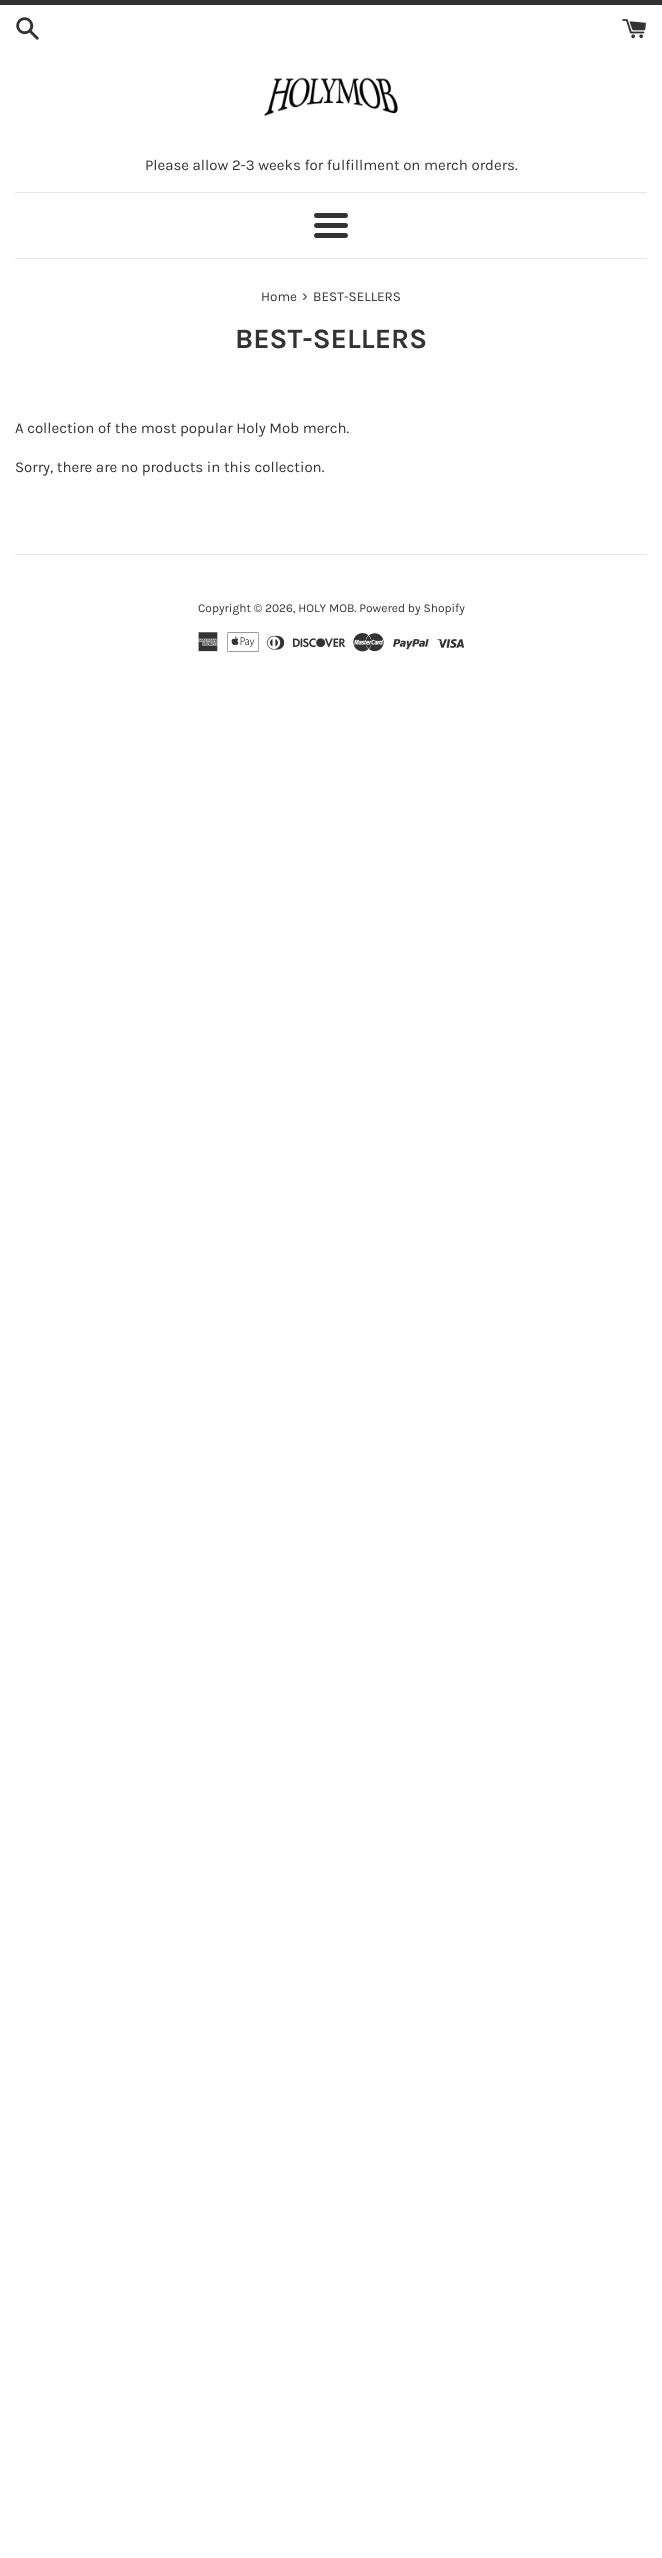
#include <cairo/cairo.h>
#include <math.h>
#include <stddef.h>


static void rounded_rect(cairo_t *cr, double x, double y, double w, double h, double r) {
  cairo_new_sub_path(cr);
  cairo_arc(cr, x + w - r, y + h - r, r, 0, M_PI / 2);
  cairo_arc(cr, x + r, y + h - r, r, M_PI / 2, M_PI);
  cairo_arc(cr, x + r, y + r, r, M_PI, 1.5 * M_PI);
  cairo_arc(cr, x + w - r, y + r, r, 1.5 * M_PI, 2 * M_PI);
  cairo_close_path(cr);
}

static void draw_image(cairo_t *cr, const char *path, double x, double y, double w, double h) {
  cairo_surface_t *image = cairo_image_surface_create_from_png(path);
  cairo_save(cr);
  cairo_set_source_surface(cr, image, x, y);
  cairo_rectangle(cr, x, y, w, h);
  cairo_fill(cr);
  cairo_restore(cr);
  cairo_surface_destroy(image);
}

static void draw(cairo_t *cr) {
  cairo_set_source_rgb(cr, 1, 1, 1);
  cairo_paint(cr);
  cairo_set_source_rgb(cr, 51 / 255.0, 51 / 255.0, 51 / 255.0);
  cairo_rectangle(cr, 0, 0, 662, 5);
  cairo_fill(cr);
  draw_image(cr, "images/1.png", 16, 17, 23, 23);
  draw_image(cr, "images/2.png", 622, 19, 24, 20);
  draw_image(cr, "images/3.png", 264, 77, 134, 40);
  cairo_set_source_rgb(cr, 232 / 255.0, 232 / 255.0, 232 / 255.0);
  cairo_rectangle(cr, 15, 192, 632, 1);
  cairo_fill(cr);
  cairo_set_source_rgb(cr, 51 / 255.0, 51 / 255.0, 51 / 255.0);
  rounded_rect(cr, 314, 213, 34, 5, 2.5);
  cairo_fill(cr);
  rounded_rect(cr, 314, 223, 34, 5, 2.5);
  cairo_fill(cr);
  rounded_rect(cr, 314, 233, 34, 5, 2.5);
  cairo_fill(cr);
  cairo_set_source_rgb(cr, 232 / 255.0, 232 / 255.0, 232 / 255.0);
  cairo_rectangle(cr, 15, 258, 632, 1);
  cairo_fill(cr);
  cairo_rectangle(cr, 15, 554, 632, 1);
  cairo_fill(cr);
  draw_image(cr, "images/4.png", 198, 632, 20, 20);
  draw_image(cr, "images/5.png", 227, 632, 32, 20);
  draw_image(cr, "images/6.png", 267, 635, 17, 15);
  draw_image(cr, "images/7.png", 293, 638, 52, 10);
  draw_image(cr, "images/8.png", 353, 633, 31, 19);
  draw_image(cr, "images/9.png", 393, 639, 36, 11);
  draw_image(cr, "images/10.png", 437, 639, 27, 9);
  cairo_select_font_face(cr, "Karla", CAIRO_FONT_SLANT_NORMAL, CAIRO_FONT_WEIGHT_NORMAL);
  cairo_set_font_size(cr, 15);
  cairo_set_source_rgb(cr, 51 / 255.0, 51 / 255.0, 51 / 255.0);
  cairo_move_to(cr, 145, 170);
  cairo_show_text(cr, "Please allow 2-3 weeks for fulfillment on merch orders.");
  cairo_set_font_size(cr, 13.5);
  cairo_move_to(cr, 261, 301);
  cairo_show_text(cr, "Home");
  cairo_set_font_size(cr, 16);
  cairo_move_to(cr, 302, 301);
  cairo_show_text(cr, "›");
  cairo_set_font_size(cr, 13.5);
  cairo_move_to(cr, 313, 301);
  cairo_show_text(cr, "BEST-SELLERS");
  cairo_select_font_face(cr, "Karla", CAIRO_FONT_SLANT_NORMAL, CAIRO_FONT_WEIGHT_BOLD);
  cairo_set_font_size(cr, 28);
  cairo_move_to(cr, 235, 348);
  cairo_show_text(cr, "BEST-SELLERS");
  cairo_select_font_face(cr, "Karla", CAIRO_FONT_SLANT_NORMAL, CAIRO_FONT_WEIGHT_NORMAL);
  cairo_set_font_size(cr, 15);
  cairo_move_to(cr, 15, 433);
  cairo_show_text(cr, "A collection of the most popular Holy Mob merch.");
  cairo_move_to(cr, 15, 472);
  cairo_show_text(cr, "Sorry, there are no products in this collection.");
  cairo_set_font_size(cr, 12);
  cairo_move_to(cr, 198, 612);
  cairo_show_text(cr, "Copyright © 2026, HOLY MOB. Powered by Shopify");
}

int main(void) {
  cairo_surface_t *surface = cairo_image_surface_create(CAIRO_FORMAT_RGB24, 662, 2558);
  cairo_t *cr = cairo_create(surface);
  cairo_font_options_t *options = cairo_font_options_create();
  cairo_font_options_set_hint_metrics(options, CAIRO_HINT_METRICS_OFF);
  cairo_font_options_set_hint_style(options, CAIRO_HINT_STYLE_NONE);
  cairo_set_font_options(cr, options);
  cairo_set_miter_limit(cr, 4);
  draw(cr);
  cairo_surface_write_to_png(surface, "out.png");
  cairo_font_options_destroy(options);
  cairo_destroy(cr);
  cairo_surface_destroy(surface);
  return 0;
}
